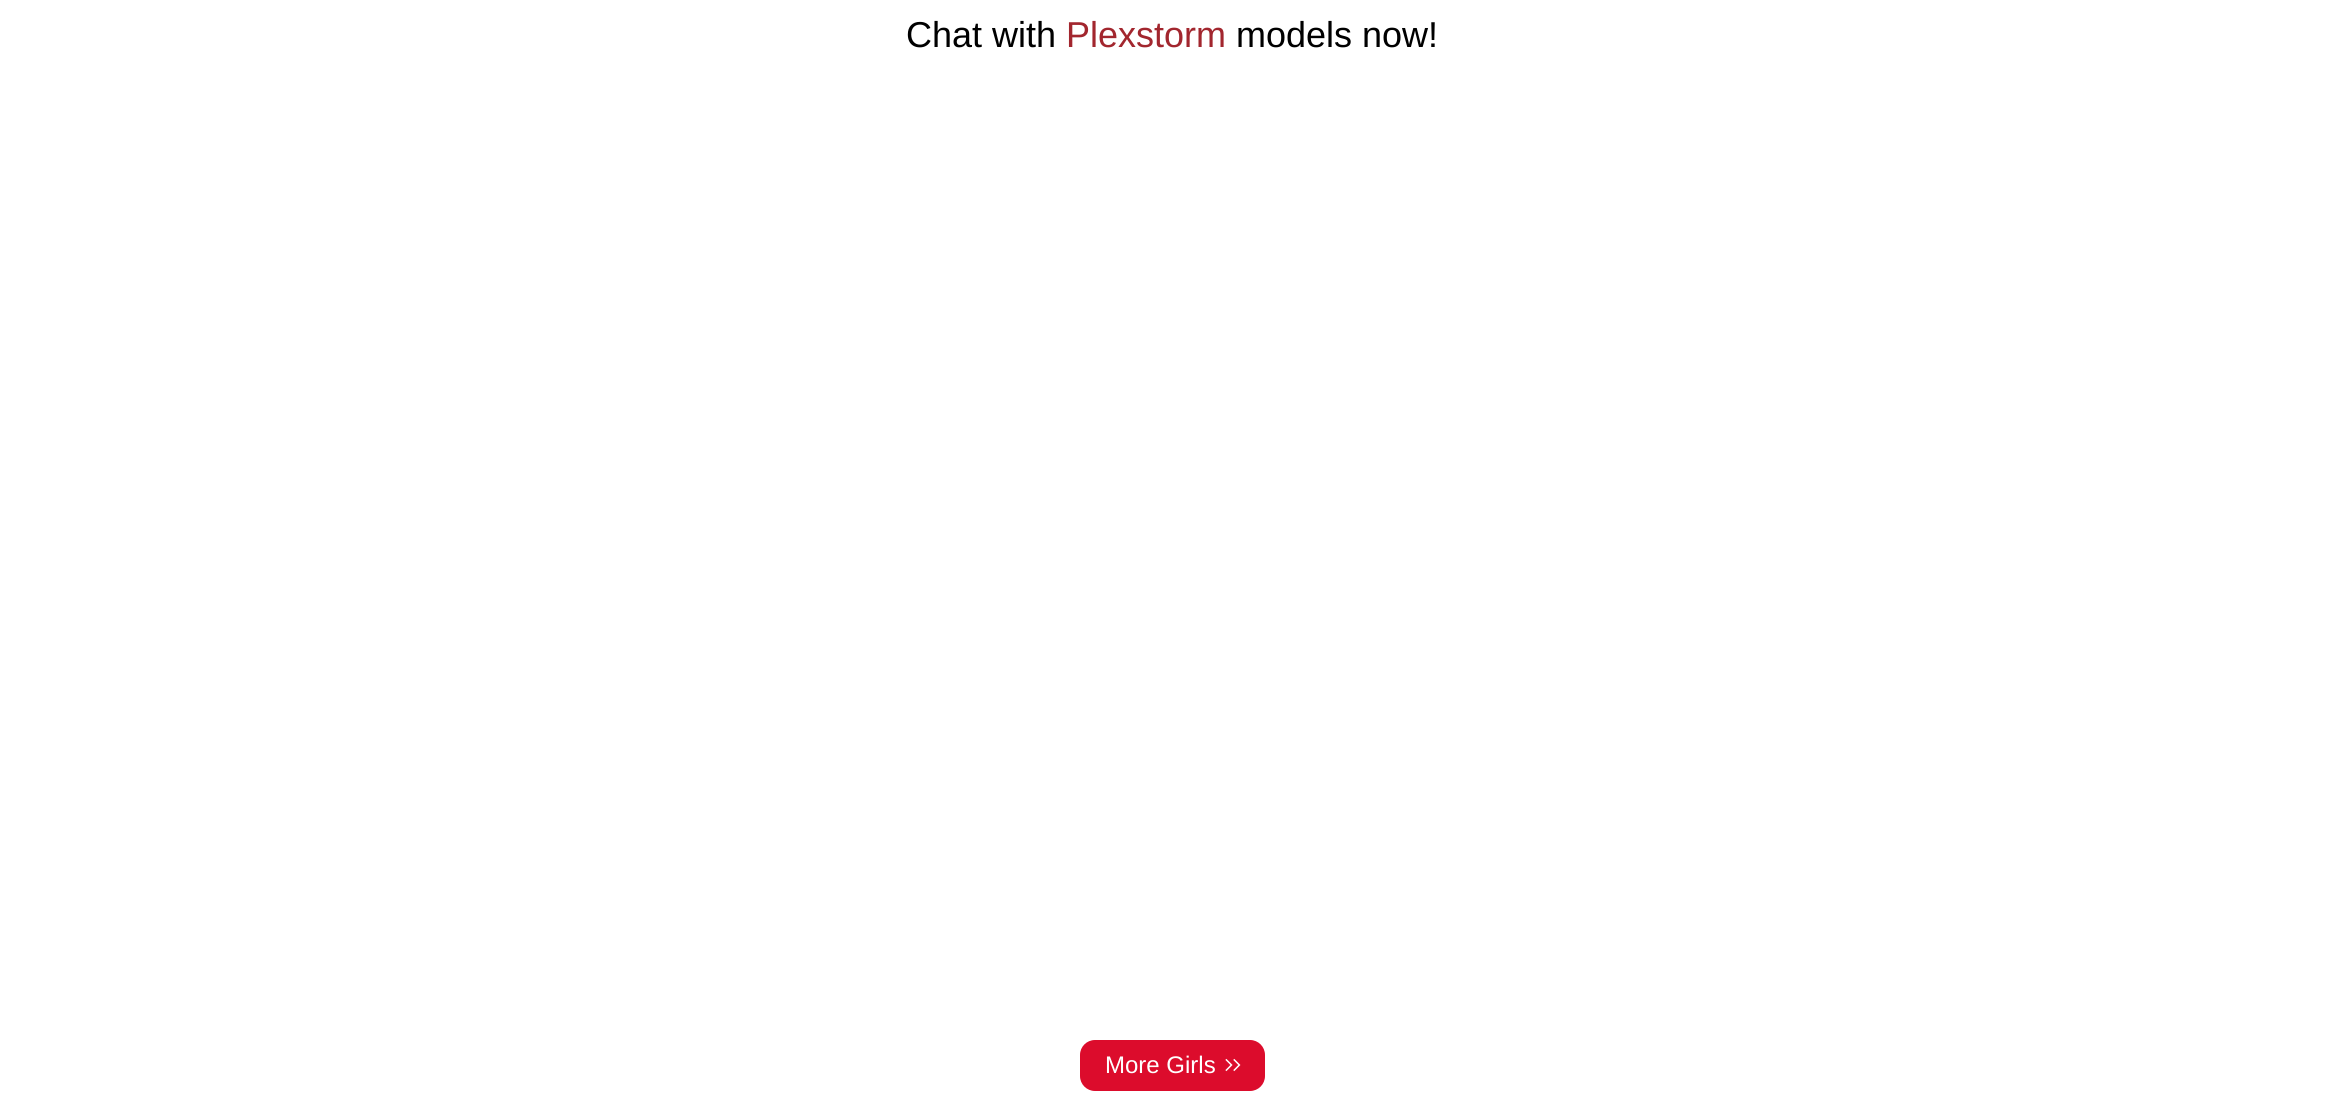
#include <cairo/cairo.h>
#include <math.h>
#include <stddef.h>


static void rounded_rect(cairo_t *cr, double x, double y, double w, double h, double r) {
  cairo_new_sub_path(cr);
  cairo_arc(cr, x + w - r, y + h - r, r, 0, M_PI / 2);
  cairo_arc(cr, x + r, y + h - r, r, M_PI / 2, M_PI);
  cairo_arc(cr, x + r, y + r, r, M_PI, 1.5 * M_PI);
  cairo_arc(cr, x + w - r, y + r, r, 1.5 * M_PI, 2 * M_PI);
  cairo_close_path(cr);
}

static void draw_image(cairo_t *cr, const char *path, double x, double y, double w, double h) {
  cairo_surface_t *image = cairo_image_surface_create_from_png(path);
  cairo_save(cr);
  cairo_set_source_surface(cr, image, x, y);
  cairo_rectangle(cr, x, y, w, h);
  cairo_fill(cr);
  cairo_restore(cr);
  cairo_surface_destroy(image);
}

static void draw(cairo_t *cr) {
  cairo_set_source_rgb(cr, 1, 1, 1);
  cairo_paint(cr);
  cairo_set_source_rgb(cr, 220 / 255.0, 12 / 255.0, 44 / 255.0);
  rounded_rect(cr, 1080, 1040, 185, 51, 15);
  cairo_fill(cr);
  draw_image(cr, "images/1.png", 1225, 1058, 16, 14);
  cairo_select_font_face(cr, "Liberation Sans", CAIRO_FONT_SLANT_NORMAL, CAIRO_FONT_WEIGHT_NORMAL);
  cairo_set_font_size(cr, 36);
  cairo_set_source_rgb(cr, 0, 0, 0);
  cairo_move_to(cr, 906, 47);
  cairo_show_text(cr, "Chat with");
  cairo_set_source_rgb(cr, 162 / 255.0, 38 / 255.0, 46 / 255.0);
  cairo_move_to(cr, 1066, 47);
  cairo_show_text(cr, "Plexstorm");
  cairo_set_source_rgb(cr, 0, 0, 0);
  cairo_move_to(cr, 1236, 47);
  cairo_show_text(cr, "models now!");
  cairo_set_font_size(cr, 24);
  cairo_set_source_rgb(cr, 1, 1, 1);
  cairo_move_to(cr, 1105, 1073);
  cairo_show_text(cr, "More Girls");
}

int main(void) {
  cairo_surface_t *surface = cairo_image_surface_create(CAIRO_FORMAT_RGB24, 2344, 1096);
  cairo_t *cr = cairo_create(surface);
  cairo_font_options_t *options = cairo_font_options_create();
  cairo_font_options_set_hint_metrics(options, CAIRO_HINT_METRICS_OFF);
  cairo_font_options_set_hint_style(options, CAIRO_HINT_STYLE_NONE);
  cairo_set_font_options(cr, options);
  cairo_set_miter_limit(cr, 4);
  draw(cr);
  cairo_surface_write_to_png(surface, "out.png");
  cairo_font_options_destroy(options);
  cairo_destroy(cr);
  cairo_surface_destroy(surface);
  return 0;
}
